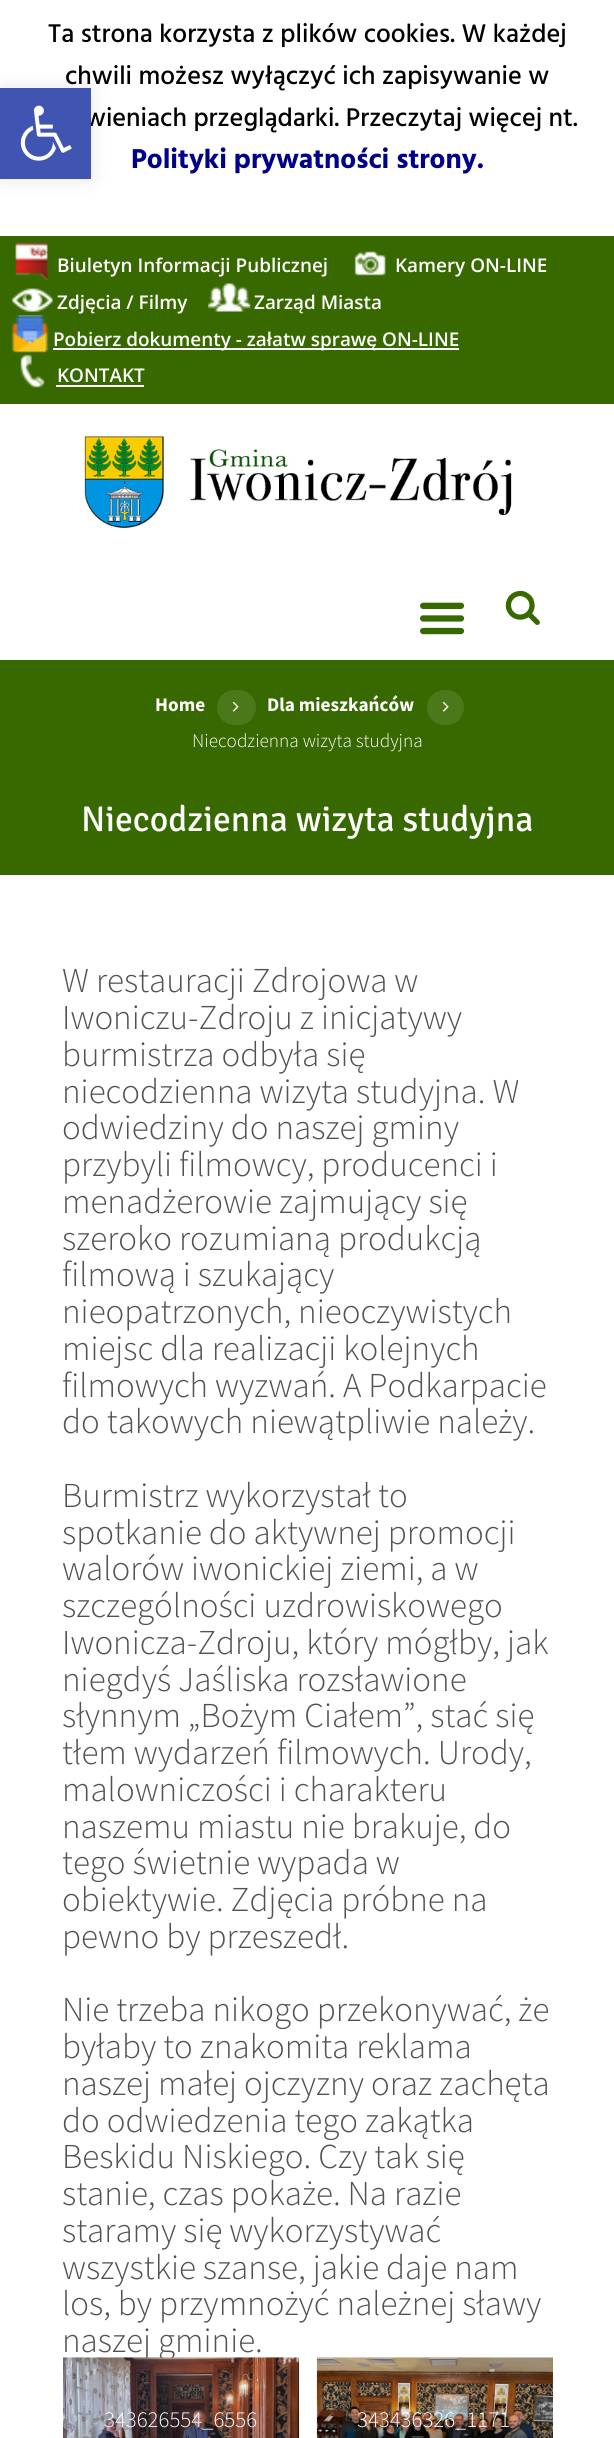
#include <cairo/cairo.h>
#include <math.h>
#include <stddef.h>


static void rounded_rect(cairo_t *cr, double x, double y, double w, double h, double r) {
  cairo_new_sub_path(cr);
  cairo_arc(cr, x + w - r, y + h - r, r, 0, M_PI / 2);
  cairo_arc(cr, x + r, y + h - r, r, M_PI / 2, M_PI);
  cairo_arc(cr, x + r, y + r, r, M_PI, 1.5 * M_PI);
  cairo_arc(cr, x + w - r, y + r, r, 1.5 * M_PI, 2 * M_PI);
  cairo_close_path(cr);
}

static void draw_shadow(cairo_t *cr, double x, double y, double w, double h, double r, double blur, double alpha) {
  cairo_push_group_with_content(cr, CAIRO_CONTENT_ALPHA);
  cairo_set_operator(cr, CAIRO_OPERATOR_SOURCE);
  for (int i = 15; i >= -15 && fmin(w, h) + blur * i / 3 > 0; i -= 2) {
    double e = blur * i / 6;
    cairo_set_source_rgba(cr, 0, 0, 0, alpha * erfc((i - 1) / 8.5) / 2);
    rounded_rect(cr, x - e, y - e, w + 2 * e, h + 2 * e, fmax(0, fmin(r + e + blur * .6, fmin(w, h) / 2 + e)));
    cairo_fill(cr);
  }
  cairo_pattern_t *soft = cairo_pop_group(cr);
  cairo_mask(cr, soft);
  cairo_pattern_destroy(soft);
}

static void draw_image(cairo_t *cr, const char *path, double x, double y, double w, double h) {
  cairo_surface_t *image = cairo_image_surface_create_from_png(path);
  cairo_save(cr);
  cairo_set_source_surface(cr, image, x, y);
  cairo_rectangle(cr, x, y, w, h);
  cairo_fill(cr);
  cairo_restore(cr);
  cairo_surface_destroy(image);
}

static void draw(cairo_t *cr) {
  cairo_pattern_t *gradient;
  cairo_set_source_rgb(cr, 1, 1, 1);
  cairo_paint(cr);
  cairo_set_source_rgb(cr, 55 / 255.0, 105 / 255.0, 0);
  cairo_rectangle(cr, 0, 236, 614, 168);
  cairo_fill(cr);
  draw_image(cr, "images/1.png", 15, 242, 33, 38);
  draw_image(cr, "images/2.png", 354, 251, 32, 25);
  draw_image(cr, "images/3.png", 11, 288, 42, 24);
  draw_image(cr, "images/4.png", 208, 283, 43, 29);
  draw_image(cr, "images/5.png", 11, 315, 38, 39);
  cairo_set_source_rgb(cr, 1, 1, 1);
  cairo_rectangle(cr, 53, 348, 406, 2);
  cairo_fill(cr);
  draw_image(cr, "images/6.png", 20, 354, 25, 34);
  cairo_rectangle(cr, 56, 385, 88, 2);
  cairo_fill(cr);
  draw_image(cr, "images/7.png", 84, 436, 428, 92);
  draw_image(cr, "images/8.png", 420, 602, 45, 33);
  draw_image(cr, "images/9.png", 505, 590, 35, 35);
  cairo_set_source_rgb(cr, 55 / 255.0, 105 / 255.0, 0);
  cairo_rectangle(cr, 0, 660, 614, 215);
  cairo_fill(cr);
  cairo_set_source_rgb(cr, 75 / 255.0, 120 / 255.0, 26 / 255.0);
  rounded_rect(cr, 217, 690, 39, 35, 17.5);
  cairo_fill(cr);
  draw_image(cr, "images/10.png", 232, 701, 7, 11);
  rounded_rect(cr, 427, 690, 37, 35, 17.5);
  cairo_fill(cr);
  draw_image(cr, "images/10.png", 442, 701, 7, 11);
  draw_image(cr, "images/12.png", 316, 2357, 237, 81);
  gradient = cairo_pattern_create_linear(435, 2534, 435, 2357);
  cairo_pattern_add_color_stop_rgba(gradient, 0, 0, 0, 0, 0.4);
  cairo_pattern_add_color_stop_rgba(gradient, 1, 0, 0, 0, 0);
  cairo_set_source(cr, gradient);
  cairo_pattern_destroy(gradient);
  cairo_rectangle(cr, 317, 2367, 236, 71);
  cairo_fill(cr);
  cairo_set_source_rgb(cr, 0, 0, 0);
  draw_shadow(cr, 0, 88, 91, 91, 0, 9, 0.1);
  cairo_select_font_face(cr, "Hind Medium", CAIRO_FONT_SLANT_NORMAL, CAIRO_FONT_WEIGHT_NORMAL);
  cairo_set_font_size(cr, 26.25);
  cairo_set_source_rgb(cr, 0, 0, 0);
  cairo_move_to(cr, 48, 42);
  cairo_show_text(cr, "Ta strona korzysta z plików cookies. W każdej");
  cairo_move_to(cr, 65, 84);
  cairo_show_text(cr, "chwili możesz wyłączyć ich zapisywanie w");
  cairo_move_to(cr, 85, 126);
  cairo_show_text(cr, "wieniach przeglądarki. Przeczytaj więcej nt.");
  cairo_select_font_face(cr, "Hind", CAIRO_FONT_SLANT_NORMAL, CAIRO_FONT_WEIGHT_BOLD);
  cairo_set_font_size(cr, 28);
  cairo_set_source_rgb(cr, 0, 0, 139 / 255.0);
  cairo_move_to(cr, 131, 168);
  cairo_show_text(cr, "Polityki prywatności strony.");
  cairo_select_font_face(cr, "Open Sans SemiBold", CAIRO_FONT_SLANT_NORMAL, CAIRO_FONT_WEIGHT_NORMAL);
  cairo_set_font_size(cr, 18.9);
  cairo_set_source_rgb(cr, 1, 1, 1);
  cairo_move_to(cr, 57, 272);
  cairo_show_text(cr, "Biuletyn Informacji Publicznej");
  cairo_move_to(cr, 395, 272);
  cairo_show_text(cr, "Kamery ON-LINE");
  cairo_move_to(cr, 57, 309);
  cairo_show_text(cr, "Zdjęcia / Filmy");
  cairo_move_to(cr, 254, 309);
  cairo_show_text(cr, "Zarząd Miasta");
  cairo_move_to(cr, 53, 346);
  cairo_show_text(cr, "Pobierz dokumenty - załatw sprawę ON-LINE");
  cairo_move_to(cr, 57, 382);
  cairo_show_text(cr, "KONTAKT");
  cairo_select_font_face(cr, "Source Sans Pro", CAIRO_FONT_SLANT_NORMAL, CAIRO_FONT_WEIGHT_BOLD);
  cairo_set_font_size(cr, 19.25);
  cairo_move_to(cr, 155, 711);
  cairo_show_text(cr, "Home");
  cairo_move_to(cr, 267, 711);
  cairo_show_text(cr, "Dla mieszkańców");
  cairo_select_font_face(cr, "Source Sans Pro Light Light", CAIRO_FONT_SLANT_NORMAL, CAIRO_FONT_WEIGHT_NORMAL);
  cairo_move_to(cr, 192, 747);
  cairo_show_text(cr, "Niecodzienna wizyta studyjna");
  cairo_select_font_face(cr, "Signika", CAIRO_FONT_SLANT_NORMAL, CAIRO_FONT_WEIGHT_NORMAL);
  cairo_set_font_size(cr, 35.75);
  cairo_move_to(cr, 81, 831);
  cairo_show_text(cr, "Niecodzienna wizyta studyjna");
  cairo_select_font_face(cr, "Source Sans Pro Light Light", CAIRO_FONT_SLANT_NORMAL, CAIRO_FONT_WEIGHT_NORMAL);
  cairo_set_font_size(cr, 35);
  cairo_set_source_rgb(cr, 82 / 255.0, 82 / 255.0, 82 / 255.0);
  cairo_move_to(cr, 62, 992);
  cairo_show_text(cr, "W restauracji Zdrojowa w");
  cairo_move_to(cr, 62, 1029);
  cairo_show_text(cr, "Iwoniczu-Zdroju z inicjatywy");
  cairo_move_to(cr, 62, 1066);
  cairo_show_text(cr, "burmistrza odbyła się");
  cairo_move_to(cr, 62, 1103);
  cairo_show_text(cr, "niecodzienna wizyta studyjna. W");
  cairo_move_to(cr, 62, 1139);
  cairo_show_text(cr, "odwiedziny do naszej gminy");
  cairo_move_to(cr, 62, 1176);
  cairo_show_text(cr, "przybyli filmowcy, producenci i");
  cairo_move_to(cr, 62, 1213);
  cairo_show_text(cr, "menadżerowie zajmujący się");
  cairo_move_to(cr, 62, 1250);
  cairo_show_text(cr, "szeroko rozumianą produkcją");
  cairo_move_to(cr, 62, 1286);
  cairo_show_text(cr, "filmową i szukający");
  cairo_move_to(cr, 62, 1323);
  cairo_show_text(cr, "nieopatrzonych, nieoczywistych");
  cairo_move_to(cr, 62, 1360);
  cairo_show_text(cr, "miejsc dla realizacji kolejnych");
  cairo_move_to(cr, 62, 1397);
  cairo_show_text(cr, "filmowych wyzwań. A Podkarpacie");
  cairo_move_to(cr, 62, 1433);
  cairo_show_text(cr, "do takowych niewątpliwie należy.");
  cairo_move_to(cr, 62, 1507);
  cairo_show_text(cr, "Burmistrz wykorzystał to");
  cairo_move_to(cr, 62, 1544);
  cairo_show_text(cr, "spotkanie do aktywnej promocji");
  cairo_move_to(cr, 62, 1580);
  cairo_show_text(cr, "walorów iwonickiej ziemi, a w");
  cairo_move_to(cr, 62, 1617);
  cairo_show_text(cr, "szczególności uzdrowiskowego");
  cairo_move_to(cr, 62, 1654);
  cairo_show_text(cr, "Iwonicza-Zdroju, który mógłby, jak");
  cairo_move_to(cr, 62, 1691);
  cairo_show_text(cr, "niegdyś Jaśliska rozsławione");
  cairo_move_to(cr, 62, 1727);
  cairo_show_text(cr, "słynnym „Bożym Ciałem”, stać się");
  cairo_move_to(cr, 62, 1764);
  cairo_show_text(cr, "tłem wydarzeń filmowych. Urody,");
  cairo_move_to(cr, 62, 1801);
  cairo_show_text(cr, "malowniczości i charakteru");
  cairo_move_to(cr, 62, 1838);
  cairo_show_text(cr, "naszemu miastu nie brakuje, do");
  cairo_move_to(cr, 62, 1874);
  cairo_show_text(cr, "tego świetnie wypada w");
  cairo_move_to(cr, 62, 1911);
  cairo_show_text(cr, "obiektywie. Zdjęcia próbne na");
  cairo_move_to(cr, 62, 1948);
  cairo_show_text(cr, "pewno by przeszedł.");
  cairo_move_to(cr, 62, 2021);
  cairo_show_text(cr, "Nie trzeba nikogo przekonywać, że");
  cairo_move_to(cr, 62, 2058);
  cairo_show_text(cr, "byłaby to znakomita reklama");
  cairo_move_to(cr, 62, 2095);
  cairo_show_text(cr, "naszej małej ojczyzny oraz zachęta");
  cairo_move_to(cr, 62, 2132);
  cairo_show_text(cr, "do odwiedzenia tego zakątka");
  cairo_move_to(cr, 62, 2168);
  cairo_show_text(cr, "Beskidu Niskiego. Czy tak się");
  cairo_move_to(cr, 62, 2205);
  cairo_show_text(cr, "stanie, czas pokaże. Na razie");
  cairo_move_to(cr, 62, 2242);
  cairo_show_text(cr, "staramy się wykorzystywać");
  cairo_move_to(cr, 62, 2279);
  cairo_show_text(cr, "wszystkie szanse, jakie daje nam");
  cairo_move_to(cr, 62, 2315);
  cairo_show_text(cr, "los, by przymnożyć należnej sławy");
  cairo_move_to(cr, 62, 2352);
  cairo_show_text(cr, "naszej gminie.");
  draw_image(cr, "images/11.png", 63, 2357, 237, 81);
  gradient = cairo_pattern_create_linear(181, 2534, 181, 2357);
  cairo_pattern_add_color_stop_rgba(gradient, 0, 0, 0, 0, 0.4);
  cairo_pattern_add_color_stop_rgba(gradient, 1, 0, 0, 0, 0);
  cairo_set_source(cr, gradient);
  cairo_pattern_destroy(gradient);
  cairo_rectangle(cr, 63, 2367, 236, 71);
  cairo_fill(cr);
  cairo_set_font_size(cr, 22.75);
  cairo_set_source_rgb(cr, 1, 1, 1);
  cairo_move_to(cr, 104, 2427);
  cairo_show_text(cr, "343626554_6556");
  cairo_move_to(cr, 357, 2427);
  cairo_show_text(cr, "343436326_1171");
  cairo_set_source_rgb(cr, 64 / 255.0, 84 / 255.0, 178 / 255.0);
  cairo_rectangle(cr, 0, 88, 91, 91);
  cairo_fill(cr);
  draw_image(cr, "images/13.png", 20, 105, 52, 56);
}

int main(void) {
  cairo_surface_t *surface = cairo_image_surface_create(CAIRO_FORMAT_RGB24, 614, 2438);
  cairo_t *cr = cairo_create(surface);
  cairo_font_options_t *options = cairo_font_options_create();
  cairo_font_options_set_hint_metrics(options, CAIRO_HINT_METRICS_OFF);
  cairo_font_options_set_hint_style(options, CAIRO_HINT_STYLE_NONE);
  cairo_set_font_options(cr, options);
  cairo_set_miter_limit(cr, 4);
  draw(cr);
  cairo_surface_write_to_png(surface, "out.png");
  cairo_font_options_destroy(options);
  cairo_destroy(cr);
  cairo_surface_destroy(surface);
  return 0;
}
